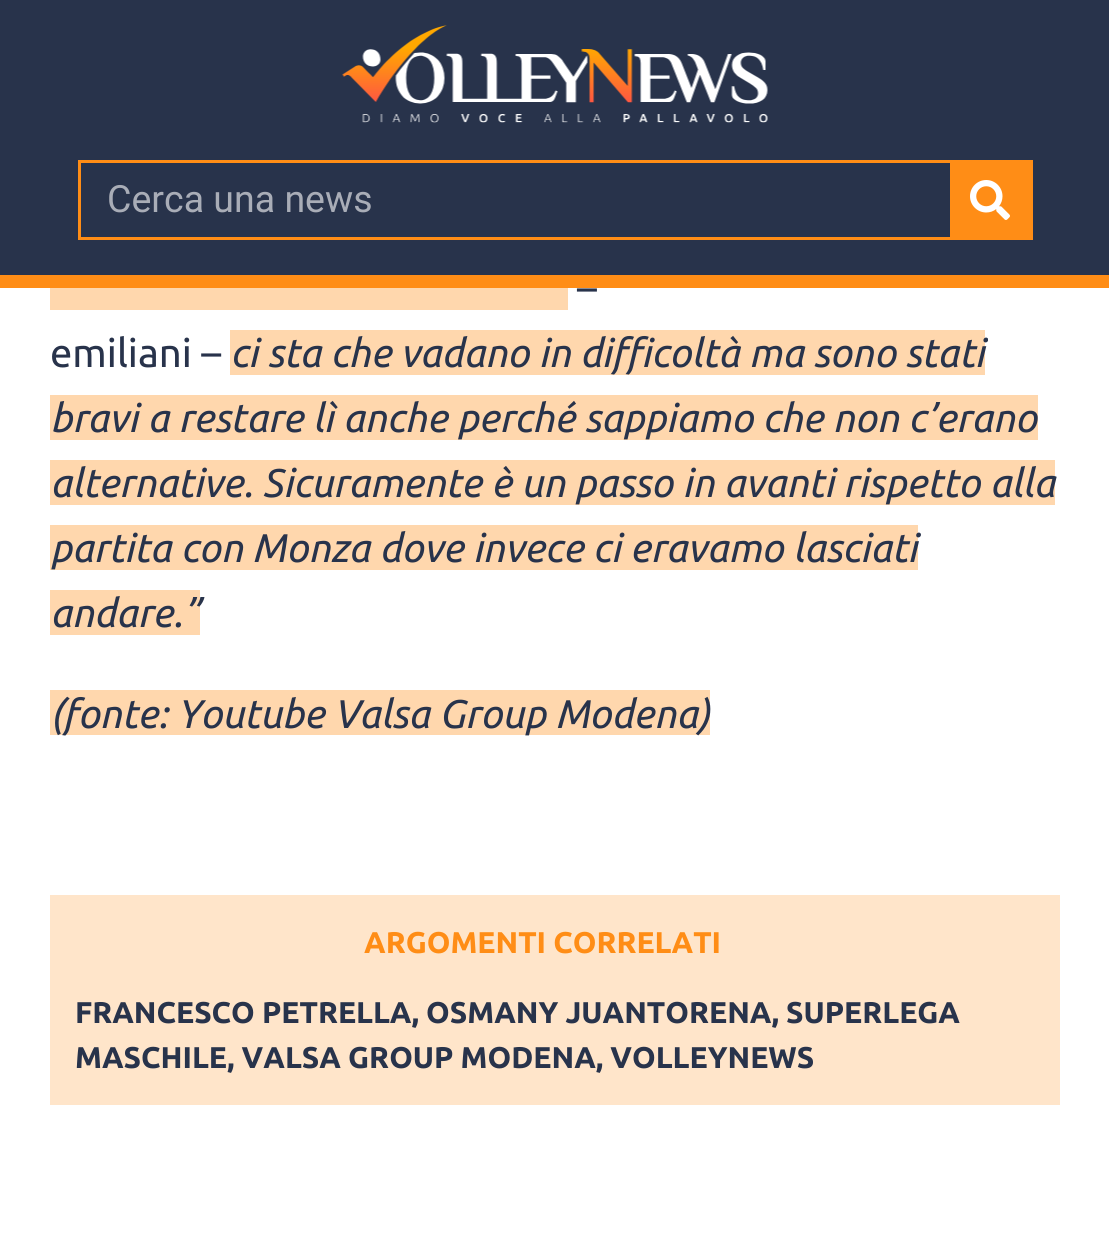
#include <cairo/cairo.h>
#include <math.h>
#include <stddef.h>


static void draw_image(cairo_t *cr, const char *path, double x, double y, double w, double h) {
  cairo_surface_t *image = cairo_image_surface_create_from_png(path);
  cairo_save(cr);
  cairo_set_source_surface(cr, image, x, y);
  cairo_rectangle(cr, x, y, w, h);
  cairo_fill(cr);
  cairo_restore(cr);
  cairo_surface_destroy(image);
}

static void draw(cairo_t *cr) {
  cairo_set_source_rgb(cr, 1, 1, 1);
  cairo_paint(cr);
  cairo_set_source_rgb(cr, 40 / 255.0, 51 / 255.0, 75 / 255.0);
  cairo_rectangle(cr, 0, 0, 1109, 275);
  cairo_fill(cr);
  cairo_set_source_rgb(cr, 1, 141 / 255.0, 22 / 255.0);
  cairo_rectangle(cr, 0, 275, 1109, 13);
  cairo_fill(cr);
  draw_image(cr, "images/1.png", 342, 25, 426, 98);
  cairo_rectangle(cr, 79.5, 161.5, 952, 77);
  cairo_set_line_width(cr, 3);
  cairo_stroke(cr);
  cairo_rectangle(cr, 950, 163, 80, 74);
  cairo_fill(cr);
  draw_image(cr, "images/2.png", 970, 180, 40, 40);
  cairo_set_source_rgb(cr, 1, 215 / 255.0, 173 / 255.0);
  cairo_rectangle(cr, 50, 288, 518, 22);
  cairo_fill(cr);
  cairo_rectangle(cr, 230, 330, 755, 45);
  cairo_fill(cr);
  cairo_rectangle(cr, 50, 395, 988, 45);
  cairo_fill(cr);
  cairo_rectangle(cr, 50, 460, 1005, 45);
  cairo_fill(cr);
  cairo_rectangle(cr, 50, 525, 868, 45);
  cairo_fill(cr);
  cairo_rectangle(cr, 50, 590, 150, 45);
  cairo_fill(cr);
  cairo_rectangle(cr, 50, 690, 660, 45);
  cairo_fill(cr);
  cairo_set_source_rgb(cr, 1, 229 / 255.0, 202 / 255.0);
  cairo_rectangle(cr, 50, 895, 1010, 210);
  cairo_fill(cr);
  cairo_select_font_face(cr, "Roboto", CAIRO_FONT_SLANT_NORMAL, CAIRO_FONT_WEIGHT_NORMAL);
  cairo_set_font_size(cr, 37.5);
  cairo_set_source_rgb(cr, 169 / 255.0, 173 / 255.0, 183 / 255.0);
  cairo_move_to(cr, 107, 212);
  cairo_show_text(cr, "Cerca una news");
  cairo_select_font_face(cr, "Ubuntu", CAIRO_FONT_SLANT_NORMAL, CAIRO_FONT_WEIGHT_NORMAL);
  cairo_set_font_size(cr, 40);
  cairo_set_source_rgb(cr, 40 / 255.0, 51 / 255.0, 75 / 255.0);
  cairo_move_to(cr, 577, 302);
  cairo_show_text(cr, "–");
  cairo_move_to(cr, 50, 367);
  cairo_show_text(cr, "emiliani –");
  cairo_select_font_face(cr, "Ubuntu", CAIRO_FONT_SLANT_ITALIC, CAIRO_FONT_WEIGHT_NORMAL);
  cairo_move_to(cr, 230, 367);
  cairo_show_text(cr, "ci sta che vadano in difficoltà ma sono stati");
  cairo_move_to(cr, 50, 432);
  cairo_show_text(cr, "bravi a restare lì anche perché sappiamo che non c’erano");
  cairo_move_to(cr, 50, 497);
  cairo_show_text(cr, "alternative. Sicuramente è un passo in avanti rispetto alla");
  cairo_move_to(cr, 50, 562);
  cairo_show_text(cr, "partita con Monza dove invece ci eravamo lasciati");
  cairo_move_to(cr, 50, 627);
  cairo_show_text(cr, "andare.”");
  cairo_move_to(cr, 50, 728);
  cairo_show_text(cr, "(fonte: Youtube Valsa Group Modena)");
  cairo_select_font_face(cr, "Ubuntu", CAIRO_FONT_SLANT_NORMAL, CAIRO_FONT_WEIGHT_BOLD);
  cairo_set_font_size(cr, 30);
  cairo_set_source_rgb(cr, 1, 141 / 255.0, 22 / 255.0);
  cairo_move_to(cr, 364, 953);
  cairo_show_text(cr, "ARGOMENTI CORRELATI");
  cairo_set_source_rgb(cr, 40 / 255.0, 51 / 255.0, 75 / 255.0);
  cairo_move_to(cr, 75, 1023);
  cairo_show_text(cr, "FRANCESCO PETRELLA, OSMANY JUANTORENA, SUPERLEGA");
  cairo_move_to(cr, 75, 1068);
  cairo_show_text(cr, "MASCHILE, VALSA GROUP MODENA, VOLLEYNEWS");
}

int main(void) {
  cairo_surface_t *surface = cairo_image_surface_create(CAIRO_FORMAT_RGB24, 1109, 1244);
  cairo_t *cr = cairo_create(surface);
  cairo_font_options_t *options = cairo_font_options_create();
  cairo_font_options_set_hint_metrics(options, CAIRO_HINT_METRICS_OFF);
  cairo_font_options_set_hint_style(options, CAIRO_HINT_STYLE_NONE);
  cairo_set_font_options(cr, options);
  cairo_set_miter_limit(cr, 4);
  draw(cr);
  cairo_surface_write_to_png(surface, "out.png");
  cairo_font_options_destroy(options);
  cairo_destroy(cr);
  cairo_surface_destroy(surface);
  return 0;
}
